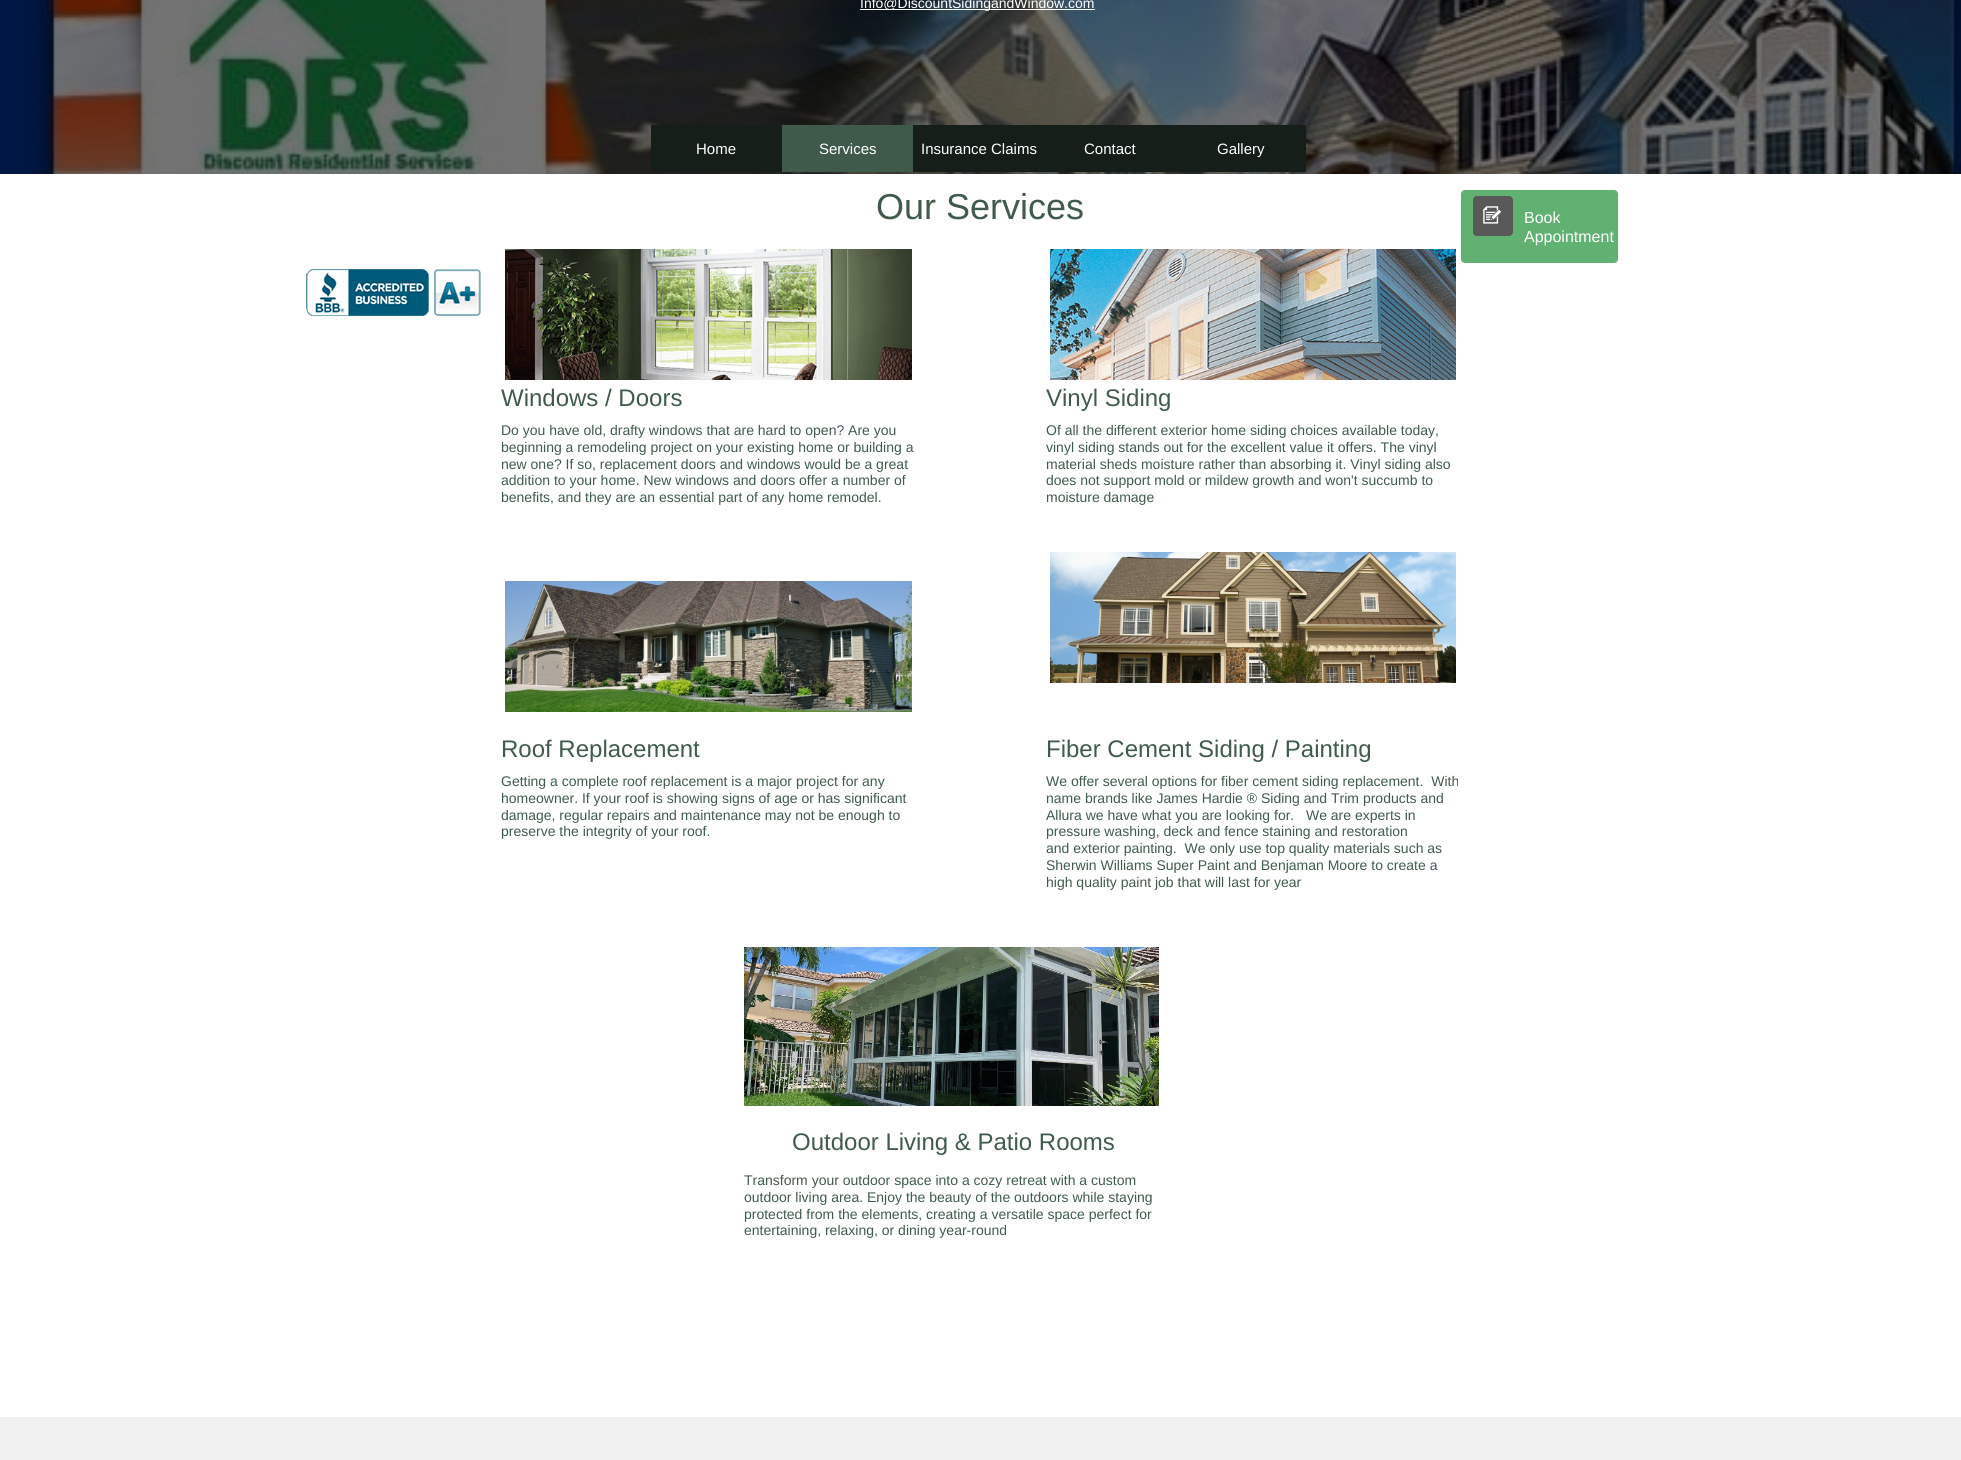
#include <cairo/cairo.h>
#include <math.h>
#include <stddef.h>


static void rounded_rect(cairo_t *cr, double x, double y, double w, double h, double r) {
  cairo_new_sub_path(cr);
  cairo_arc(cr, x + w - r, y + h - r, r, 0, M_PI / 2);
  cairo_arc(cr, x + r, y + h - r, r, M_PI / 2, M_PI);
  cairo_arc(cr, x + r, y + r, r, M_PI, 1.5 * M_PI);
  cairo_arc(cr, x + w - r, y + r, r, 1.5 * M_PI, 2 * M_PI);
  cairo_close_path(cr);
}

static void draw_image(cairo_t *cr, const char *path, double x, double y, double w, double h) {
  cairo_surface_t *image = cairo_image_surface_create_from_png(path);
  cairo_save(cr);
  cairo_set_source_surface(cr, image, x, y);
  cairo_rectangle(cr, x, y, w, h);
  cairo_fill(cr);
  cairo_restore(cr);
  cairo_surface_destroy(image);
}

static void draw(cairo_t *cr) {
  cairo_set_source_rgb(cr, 240 / 255.0, 240 / 255.0, 240 / 255.0);
  cairo_paint(cr);
  draw_image(cr, "images/1.png", 0, 0, 1961, 174);
  cairo_set_source_rgb(cr, 1, 1, 1);
  cairo_rectangle(cr, 860, 9, 235, 1);
  cairo_fill(cr);
  cairo_set_source_rgb(cr, 21 / 255.0, 30 / 255.0, 25 / 255.0);
  cairo_rectangle(cr, 651, 125, 655, 47);
  cairo_fill(cr);
  cairo_set_source_rgb(cr, 63 / 255.0, 90 / 255.0, 75 / 255.0);
  cairo_rectangle(cr, 782, 125, 131, 47);
  cairo_fill(cr);
  cairo_set_source_rgb(cr, 1, 1, 1);
  cairo_rectangle(cr, 0, 174, 1961, 1243);
  cairo_fill(cr);
  draw_image(cr, "images/2.png", 505, 249, 407, 131);
  draw_image(cr, "images/3.png", 1050, 249, 406, 131);
  draw_image(cr, "images/4.png", 505, 581, 407, 131);
  draw_image(cr, "images/5.png", 1050, 552, 406, 131);
  draw_image(cr, "images/6.png", 744, 947, 415, 159);
  cairo_set_source_rgb(cr, 97 / 255.0, 177 / 255.0, 114 / 255.0);
  rounded_rect(cr, 1461, 190, 157, 73, 4);
  cairo_fill(cr);
  cairo_set_source_rgb(cr, 89 / 255.0, 89 / 255.0, 89 / 255.0);
  rounded_rect(cr, 1473, 196, 40, 40, 4);
  cairo_fill(cr);
  draw_image(cr, "images/7.png", 1483, 206, 19, 18);
  draw_image(cr, "images/8.png", 306, 269, 175, 47);
  cairo_select_font_face(cr, "Liberation Sans", CAIRO_FONT_SLANT_NORMAL, CAIRO_FONT_WEIGHT_NORMAL);
  cairo_set_font_size(cr, 14);
  cairo_set_source_rgb(cr, 1, 1, 1);
  cairo_move_to(cr, 860, 8);
  cairo_show_text(cr, "Info@DiscountSidingandWindow.com");
  cairo_set_font_size(cr, 15);
  cairo_move_to(cr, 696, 154);
  cairo_show_text(cr, "Home");
  cairo_move_to(cr, 819, 154);
  cairo_show_text(cr, "Services");
  cairo_move_to(cr, 921, 154);
  cairo_show_text(cr, "Insurance Claims");
  cairo_move_to(cr, 1084, 154);
  cairo_show_text(cr, "Contact");
  cairo_move_to(cr, 1217, 154);
  cairo_show_text(cr, "Gallery");
  cairo_set_font_size(cr, 36);
  cairo_set_source_rgb(cr, 64 / 255.0, 91 / 255.0, 75 / 255.0);
  cairo_move_to(cr, 876, 219);
  cairo_show_text(cr, "Our Services");
  cairo_set_font_size(cr, 24);
  cairo_move_to(cr, 501, 406);
  cairo_show_text(cr, "Windows / Doors");
  cairo_move_to(cr, 1046, 406);
  cairo_show_text(cr, "Vinyl Siding");
  cairo_set_font_size(cr, 14);
  cairo_move_to(cr, 501, 435);
  cairo_show_text(cr, "Do you have old, drafty windows that are hard to open? Are you");
  cairo_move_to(cr, 501, 452);
  cairo_show_text(cr, "beginning a remodeling project on your existing home or building a");
  cairo_move_to(cr, 501, 469);
  cairo_show_text(cr, "new one? If so, replacement doors and windows would be a great");
  cairo_move_to(cr, 501, 485);
  cairo_show_text(cr, "addition to your home. New windows and doors offer a number of");
  cairo_move_to(cr, 501, 502);
  cairo_show_text(cr, "benefits, and they are an essential part of any home remodel.");
  cairo_move_to(cr, 1046, 435);
  cairo_show_text(cr, "Of all the different exterior home siding choices available today,");
  cairo_move_to(cr, 1046, 452);
  cairo_show_text(cr, "vinyl siding stands out for the excellent value it offers. The vinyl");
  cairo_move_to(cr, 1046, 469);
  cairo_show_text(cr, "material sheds moisture rather than absorbing it. Vinyl siding also");
  cairo_move_to(cr, 1046, 485);
  cairo_show_text(cr, "does not support mold or mildew growth and won't succumb to");
  cairo_move_to(cr, 1046, 502);
  cairo_show_text(cr, "moisture damage");
  cairo_set_font_size(cr, 24);
  cairo_move_to(cr, 501, 757);
  cairo_show_text(cr, "Roof Replacement");
  cairo_move_to(cr, 1046, 757);
  cairo_show_text(cr, "Fiber Cement Siding / Painting");
  cairo_set_font_size(cr, 14);
  cairo_move_to(cr, 501, 786);
  cairo_show_text(cr, "Getting a complete roof replacement is a major project for any");
  cairo_move_to(cr, 501, 803);
  cairo_show_text(cr, "homeowner. If your roof is showing signs of age or has significant");
  cairo_move_to(cr, 501, 820);
  cairo_show_text(cr, "damage, regular repairs and maintenance may not be enough to");
  cairo_move_to(cr, 501, 836);
  cairo_show_text(cr, "preserve the integrity of your roof.");
  cairo_move_to(cr, 1046, 786);
  cairo_show_text(cr, "We offer several options for fiber cement siding replacement.  With");
  cairo_move_to(cr, 1046, 803);
  cairo_show_text(cr, "name brands like James Hardie ® Siding and Trim products and");
  cairo_move_to(cr, 1046, 820);
  cairo_show_text(cr, "Allura we have what you are looking for.   We are experts in");
  cairo_move_to(cr, 1046, 836);
  cairo_show_text(cr, "pressure washing, deck and fence staining and restoration");
  cairo_move_to(cr, 1046, 853);
  cairo_show_text(cr, "and exterior painting.  We only use top quality materials such as");
  cairo_move_to(cr, 1046, 870);
  cairo_show_text(cr, "Sherwin Williams Super Paint and Benjaman Moore to create a");
  cairo_move_to(cr, 1046, 887);
  cairo_show_text(cr, "high quality paint job that will last for year");
  cairo_set_font_size(cr, 24);
  cairo_move_to(cr, 792, 1150);
  cairo_show_text(cr, "Outdoor Living & Patio Rooms");
  cairo_set_font_size(cr, 14);
  cairo_move_to(cr, 744, 1185);
  cairo_show_text(cr, "Transform your outdoor space into a cozy retreat with a custom");
  cairo_move_to(cr, 744, 1202);
  cairo_show_text(cr, "outdoor living area. Enjoy the beauty of the outdoors while staying");
  cairo_move_to(cr, 744, 1219);
  cairo_show_text(cr, "protected from the elements, creating a versatile space perfect for");
  cairo_move_to(cr, 744, 1235);
  cairo_show_text(cr, "entertaining, relaxing, or dining year-round");
  cairo_set_font_size(cr, 16);
  cairo_set_source_rgb(cr, 1, 1, 1);
  cairo_move_to(cr, 1524, 223);
  cairo_show_text(cr, "Book");
  cairo_move_to(cr, 1524, 242);
  cairo_show_text(cr, "Appointment");
}

int main(void) {
  cairo_surface_t *surface = cairo_image_surface_create(CAIRO_FORMAT_RGB24, 1961, 1460);
  cairo_t *cr = cairo_create(surface);
  cairo_font_options_t *options = cairo_font_options_create();
  cairo_font_options_set_hint_metrics(options, CAIRO_HINT_METRICS_OFF);
  cairo_font_options_set_hint_style(options, CAIRO_HINT_STYLE_NONE);
  cairo_set_font_options(cr, options);
  cairo_set_miter_limit(cr, 4);
  draw(cr);
  cairo_surface_write_to_png(surface, "out.png");
  cairo_font_options_destroy(options);
  cairo_destroy(cr);
  cairo_surface_destroy(surface);
  return 0;
}
